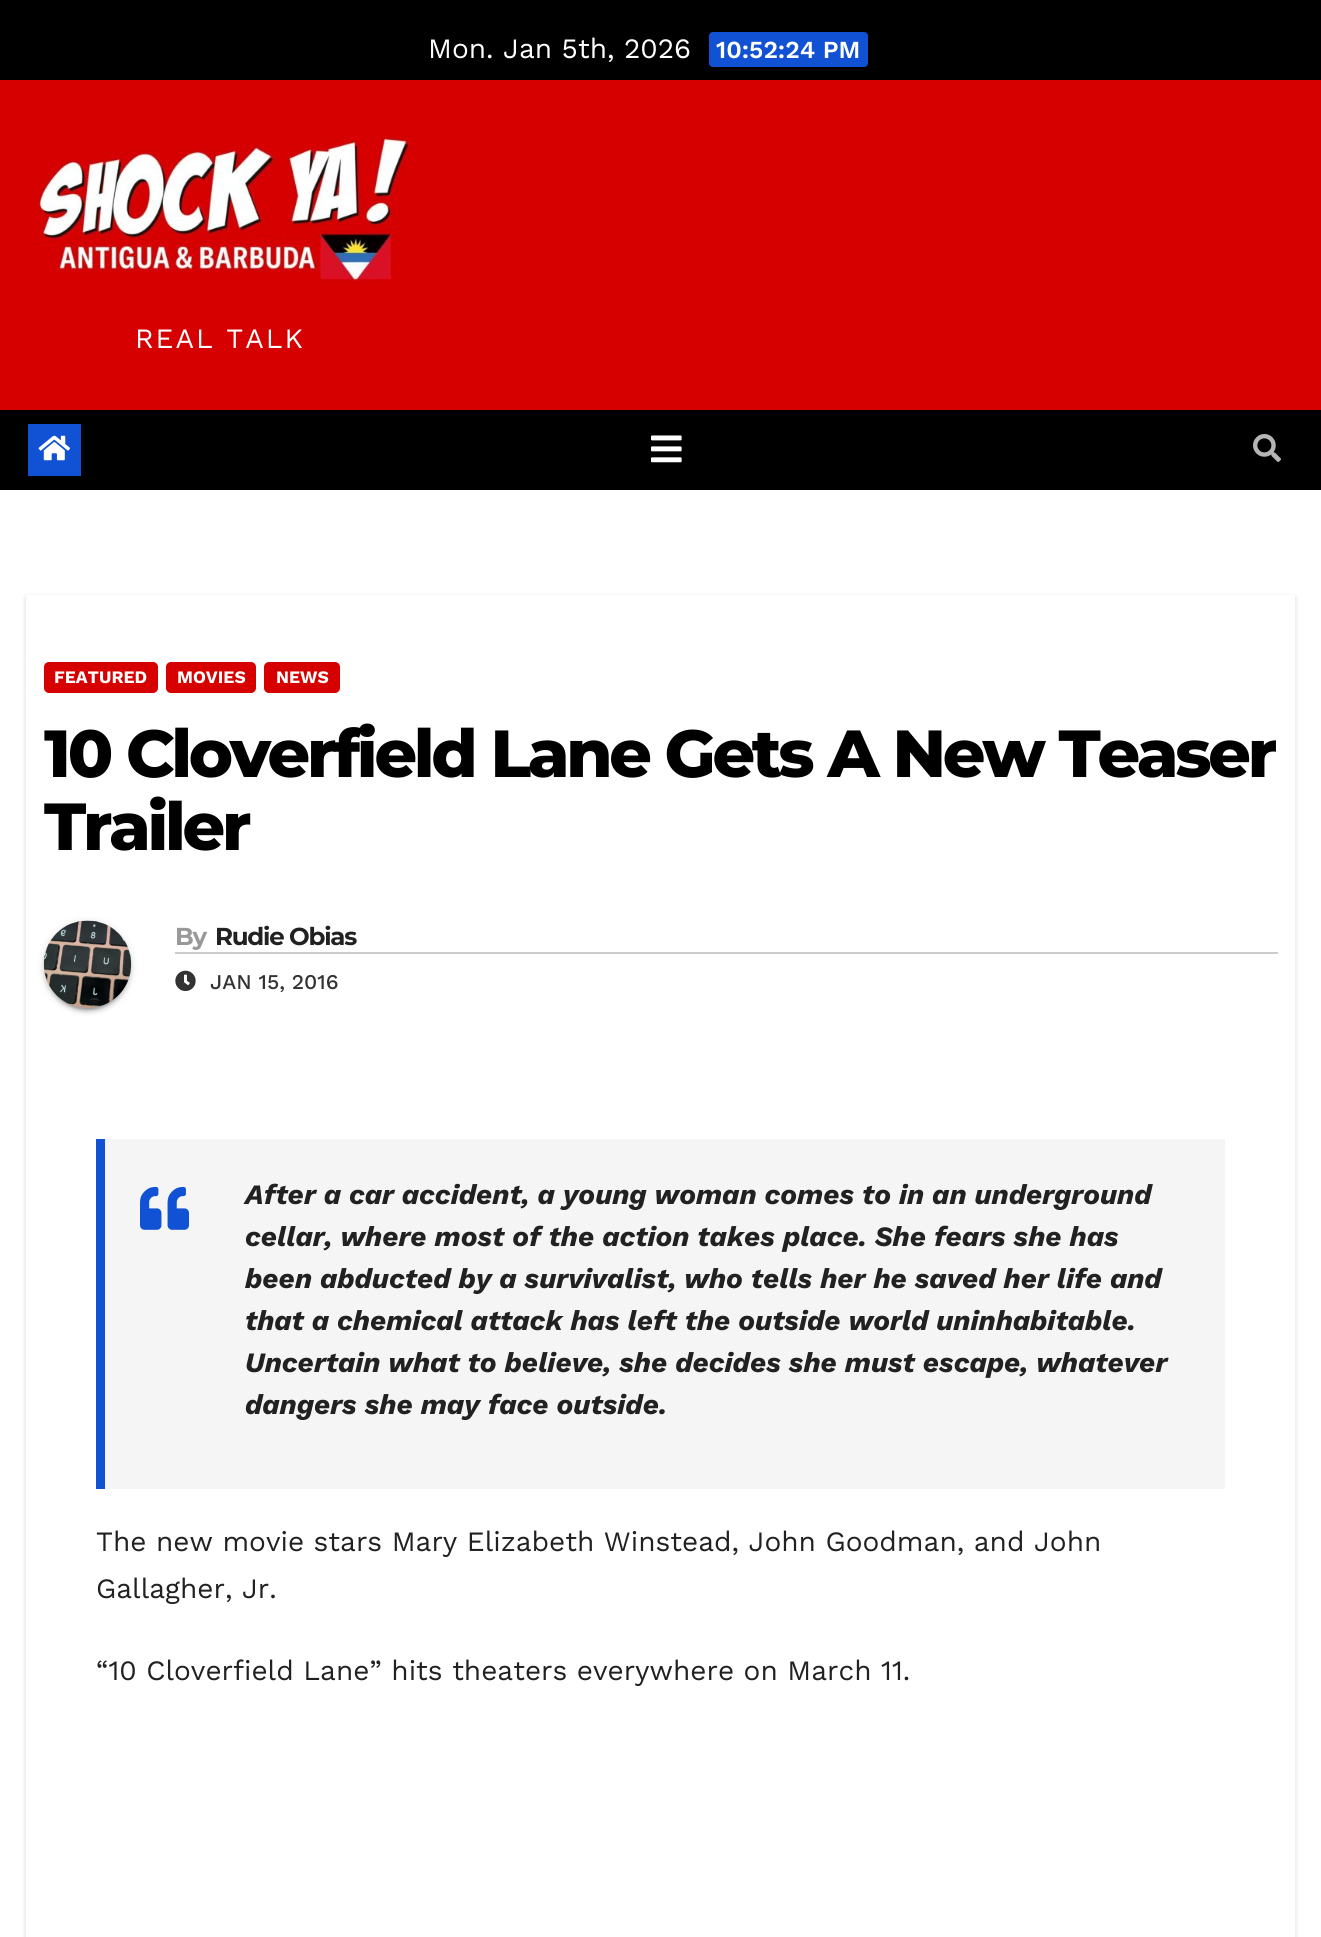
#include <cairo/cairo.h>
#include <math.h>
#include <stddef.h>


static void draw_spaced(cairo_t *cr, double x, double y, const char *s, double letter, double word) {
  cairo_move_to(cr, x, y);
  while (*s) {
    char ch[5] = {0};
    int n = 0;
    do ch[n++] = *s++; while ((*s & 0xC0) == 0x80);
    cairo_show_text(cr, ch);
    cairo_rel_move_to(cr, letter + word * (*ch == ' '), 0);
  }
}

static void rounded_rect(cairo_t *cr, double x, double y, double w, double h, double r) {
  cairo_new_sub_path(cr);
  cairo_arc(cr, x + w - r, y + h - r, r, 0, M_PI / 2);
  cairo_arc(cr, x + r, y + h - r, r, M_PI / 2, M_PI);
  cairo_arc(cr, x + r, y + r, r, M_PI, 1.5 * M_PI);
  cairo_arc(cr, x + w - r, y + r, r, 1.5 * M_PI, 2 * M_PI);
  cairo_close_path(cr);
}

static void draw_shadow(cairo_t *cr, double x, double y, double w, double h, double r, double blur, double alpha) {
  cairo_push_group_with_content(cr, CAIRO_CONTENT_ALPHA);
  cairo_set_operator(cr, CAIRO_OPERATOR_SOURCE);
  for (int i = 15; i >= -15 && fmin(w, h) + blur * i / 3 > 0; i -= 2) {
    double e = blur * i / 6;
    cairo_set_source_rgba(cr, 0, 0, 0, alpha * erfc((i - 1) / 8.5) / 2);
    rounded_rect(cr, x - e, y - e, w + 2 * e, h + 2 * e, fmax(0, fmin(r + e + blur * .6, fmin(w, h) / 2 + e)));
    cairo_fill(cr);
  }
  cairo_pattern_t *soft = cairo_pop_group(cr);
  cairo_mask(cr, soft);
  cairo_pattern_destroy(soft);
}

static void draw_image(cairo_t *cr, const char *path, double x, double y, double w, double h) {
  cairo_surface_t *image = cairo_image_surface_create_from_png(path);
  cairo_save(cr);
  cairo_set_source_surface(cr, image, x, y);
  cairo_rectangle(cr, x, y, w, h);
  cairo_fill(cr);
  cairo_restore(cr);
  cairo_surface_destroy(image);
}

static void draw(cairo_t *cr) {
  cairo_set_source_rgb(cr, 1, 1, 1);
  cairo_paint(cr);
  cairo_set_source_rgb(cr, 0, 0, 0);
  cairo_rectangle(cr, 0, 0, 1321, 80);
  cairo_fill(cr);
  cairo_set_source_rgb(cr, 17 / 255.0, 81 / 255.0, 211 / 255.0);
  rounded_rect(cr, 709, 32, 159, 35, 4);
  cairo_fill(cr);
  cairo_set_source_rgb(cr, 214 / 255.0, 0, 0);
  cairo_rectangle(cr, 0, 80, 1321, 330);
  cairo_fill(cr);
  draw_image(cr, "images/1.png", 38, 136, 374, 148);
  cairo_set_source_rgb(cr, 0, 0, 0);
  cairo_rectangle(cr, 0, 410, 1321, 80);
  cairo_fill(cr);
  cairo_set_source_rgb(cr, 17 / 255.0, 81 / 255.0, 211 / 255.0);
  cairo_rectangle(cr, 28, 424, 53, 52);
  cairo_fill(cr);
  draw_image(cr, "images/2.png", 38, 435, 32, 26);
  draw_image(cr, "images/3.png", 651, 435, 31, 28);
  draw_image(cr, "images/4.png", 1253, 434, 28, 28);
  cairo_set_source_rgb(cr, 0, 0, 0);
  draw_shadow(cr, 26, 597, 1269, 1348, 0, 2.5, 0.15);
  cairo_set_source_rgb(cr, 1, 1, 1);
  cairo_rectangle(cr, 26, 595, 1269, 1342);
  cairo_fill(cr);
  cairo_set_source_rgb(cr, 214 / 255.0, 0, 1 / 255.0);
  rounded_rect(cr, 44, 662, 114, 31, 5);
  cairo_fill(cr);
  rounded_rect(cr, 166, 662, 90, 31, 5);
  cairo_fill(cr);
  rounded_rect(cr, 264, 662, 76, 31, 5);
  cairo_fill(cr);
  cairo_set_source_rgb(cr, 0, 0, 0);
  draw_shadow(cr, 44, 922, 87, 88, 43.5, 4.5, 0.12);
  draw_shadow(cr, 47, 929, 81, 81, 40.5, 1, 0.2);
  draw_shadow(cr, 44, 924, 87, 88, 43.5, 2, 0.14);
  draw_image(cr, "images/5.png", 43, 920, 89, 88);
  cairo_set_source_rgb(cr, 204 / 255.0, 204 / 255.0, 204 / 255.0);
  cairo_rectangle(cr, 175, 952, 1103, 2);
  cairo_fill(cr);
  draw_image(cr, "images/6.png", 175, 970, 21, 21);
  cairo_set_source_rgb(cr, 245 / 255.0, 245 / 255.0, 245 / 255.0);
  cairo_rectangle(cr, 105, 1139, 1120, 350);
  cairo_fill(cr);
  cairo_set_source_rgb(cr, 17 / 255.0, 81 / 255.0, 211 / 255.0);
  cairo_rectangle(cr, 96, 1139, 9, 350);
  cairo_fill(cr);
  draw_image(cr, "images/7.png", 140, 1186, 49, 44);
  cairo_select_font_face(cr, "Work Sans", CAIRO_FONT_SLANT_NORMAL, CAIRO_FONT_WEIGHT_NORMAL);
  cairo_set_font_size(cr, 28);
  cairo_set_source_rgb(cr, 1, 1, 1);
  cairo_move_to(cr, 428, 58);
  cairo_show_text(cr, "Mon. Jan 5th, 2026");
  cairo_select_font_face(cr, "Work Sans SemiBold", CAIRO_FONT_SLANT_NORMAL, CAIRO_FONT_WEIGHT_NORMAL);
  cairo_set_font_size(cr, 24.5);
  cairo_move_to(cr, 716, 58);
  cairo_show_text(cr, "10:52:24 PM");
  cairo_select_font_face(cr, "Work Sans", CAIRO_FONT_SLANT_NORMAL, CAIRO_FONT_WEIGHT_NORMAL);
  cairo_set_font_size(cr, 28);
  draw_spaced(cr, 135, 348, "REAL TALK", 2, 0);
  cairo_select_font_face(cr, "Work Sans", CAIRO_FONT_SLANT_NORMAL, CAIRO_FONT_WEIGHT_BOLD);
  cairo_set_font_size(cr, 17.5);
  cairo_move_to(cr, 54, 683);
  cairo_show_text(cr, "FEATURED");
  cairo_move_to(cr, 177, 683);
  cairo_show_text(cr, "MOVIES");
  cairo_move_to(cr, 276, 683);
  cairo_show_text(cr, "NEWS");
  cairo_select_font_face(cr, "Montserrat ExtraBold", CAIRO_FONT_SLANT_NORMAL, CAIRO_FONT_WEIGHT_NORMAL);
  cairo_set_font_size(cr, 66.5);
  cairo_set_source_rgb(cr, 0, 0, 0);
  draw_spaced(cr, 44, 777, "10 Cloverfield Lane Gets A New Teaser", -3.3, 0);
  draw_spaced(cr, 44, 850, "Trailer", -3.3, 0);
  cairo_select_font_face(cr, "Montserrat", CAIRO_FONT_SLANT_NORMAL, CAIRO_FONT_WEIGHT_BOLD);
  cairo_set_font_size(cr, 24.5);
  cairo_set_source_rgb(cr, 153 / 255.0, 153 / 255.0, 153 / 255.0);
  draw_spaced(cr, 175, 945, "By", -1.25, 0);
  cairo_set_source_rgb(cr, 33 / 255.0, 33 / 255.0, 33 / 255.0);
  draw_spaced(cr, 215, 945, "Rudie Obias", -1.25, 0);
  cairo_select_font_face(cr, "Work Sans Medium", CAIRO_FONT_SLANT_NORMAL, CAIRO_FONT_WEIGHT_NORMAL);
  cairo_set_font_size(cr, 21);
  cairo_set_source_rgb(cr, 51 / 255.0, 51 / 255.0, 51 / 255.0);
  cairo_move_to(cr, 210, 989);
  cairo_show_text(cr, "JAN 15, 2016");
  cairo_select_font_face(cr, "Work Sans", CAIRO_FONT_SLANT_ITALIC, CAIRO_FONT_WEIGHT_BOLD);
  cairo_set_font_size(cr, 28);
  cairo_set_source_rgb(cr, 33 / 255.0, 33 / 255.0, 33 / 255.0);
  cairo_move_to(cr, 245, 1204);
  cairo_show_text(cr, "After a car accident, a young woman comes to in an underground");
  cairo_move_to(cr, 245, 1246);
  cairo_show_text(cr, "cellar, where most of the action takes place. She fears she has");
  cairo_move_to(cr, 245, 1288);
  cairo_show_text(cr, "been abducted by a survivalist, who tells her he saved her life and");
  cairo_move_to(cr, 245, 1330);
  cairo_show_text(cr, "that a chemical attack has left the outside world uninhabitable.");
  cairo_move_to(cr, 245, 1372);
  cairo_show_text(cr, "Uncertain what to believe, she decides she must escape, whatever");
  cairo_move_to(cr, 245, 1414);
  cairo_show_text(cr, "dangers she may face outside.");
  cairo_select_font_face(cr, "Work Sans", CAIRO_FONT_SLANT_NORMAL, CAIRO_FONT_WEIGHT_NORMAL);
  cairo_move_to(cr, 96, 1551);
  cairo_show_text(cr, "The new movie stars Mary Elizabeth Winstead, John Goodman, and John");
  cairo_move_to(cr, 96, 1598);
  cairo_show_text(cr, "Gallagher, Jr.");
  cairo_move_to(cr, 96, 1680);
  cairo_show_text(cr, "“10 Cloverfield Lane” hits theaters everywhere on March 11.");
}

int main(void) {
  cairo_surface_t *surface = cairo_image_surface_create(CAIRO_FORMAT_RGB24, 1321, 1937);
  cairo_t *cr = cairo_create(surface);
  cairo_font_options_t *options = cairo_font_options_create();
  cairo_font_options_set_hint_metrics(options, CAIRO_HINT_METRICS_OFF);
  cairo_font_options_set_hint_style(options, CAIRO_HINT_STYLE_NONE);
  cairo_set_font_options(cr, options);
  cairo_set_miter_limit(cr, 4);
  draw(cr);
  cairo_surface_write_to_png(surface, "out.png");
  cairo_font_options_destroy(options);
  cairo_destroy(cr);
  cairo_surface_destroy(surface);
  return 0;
}
